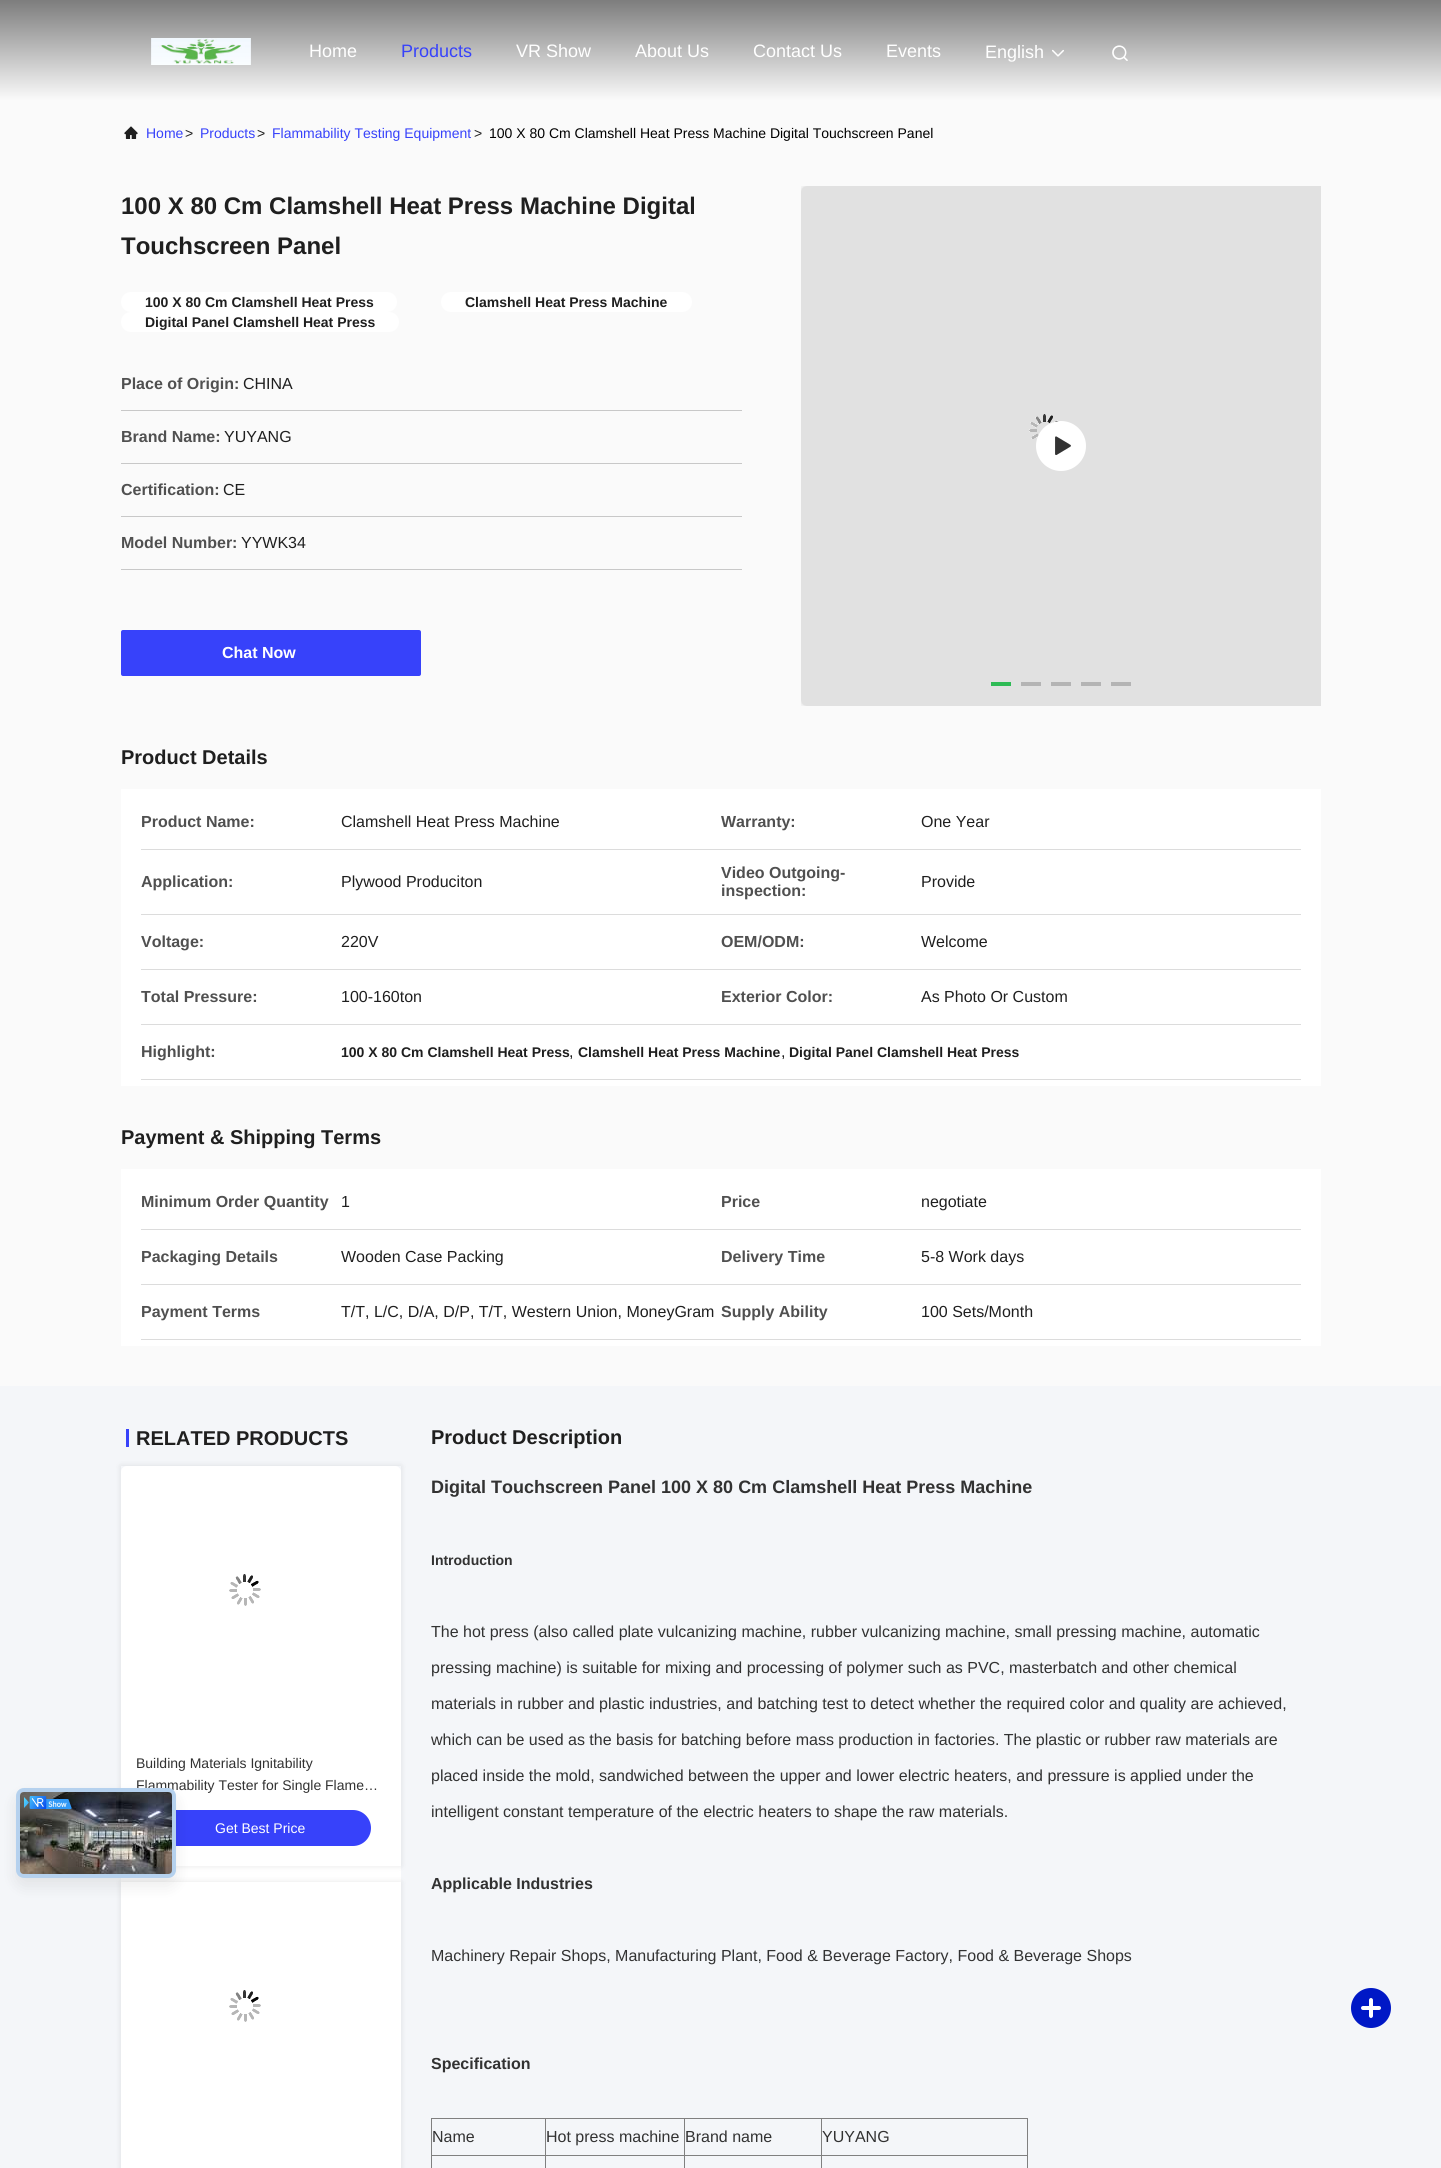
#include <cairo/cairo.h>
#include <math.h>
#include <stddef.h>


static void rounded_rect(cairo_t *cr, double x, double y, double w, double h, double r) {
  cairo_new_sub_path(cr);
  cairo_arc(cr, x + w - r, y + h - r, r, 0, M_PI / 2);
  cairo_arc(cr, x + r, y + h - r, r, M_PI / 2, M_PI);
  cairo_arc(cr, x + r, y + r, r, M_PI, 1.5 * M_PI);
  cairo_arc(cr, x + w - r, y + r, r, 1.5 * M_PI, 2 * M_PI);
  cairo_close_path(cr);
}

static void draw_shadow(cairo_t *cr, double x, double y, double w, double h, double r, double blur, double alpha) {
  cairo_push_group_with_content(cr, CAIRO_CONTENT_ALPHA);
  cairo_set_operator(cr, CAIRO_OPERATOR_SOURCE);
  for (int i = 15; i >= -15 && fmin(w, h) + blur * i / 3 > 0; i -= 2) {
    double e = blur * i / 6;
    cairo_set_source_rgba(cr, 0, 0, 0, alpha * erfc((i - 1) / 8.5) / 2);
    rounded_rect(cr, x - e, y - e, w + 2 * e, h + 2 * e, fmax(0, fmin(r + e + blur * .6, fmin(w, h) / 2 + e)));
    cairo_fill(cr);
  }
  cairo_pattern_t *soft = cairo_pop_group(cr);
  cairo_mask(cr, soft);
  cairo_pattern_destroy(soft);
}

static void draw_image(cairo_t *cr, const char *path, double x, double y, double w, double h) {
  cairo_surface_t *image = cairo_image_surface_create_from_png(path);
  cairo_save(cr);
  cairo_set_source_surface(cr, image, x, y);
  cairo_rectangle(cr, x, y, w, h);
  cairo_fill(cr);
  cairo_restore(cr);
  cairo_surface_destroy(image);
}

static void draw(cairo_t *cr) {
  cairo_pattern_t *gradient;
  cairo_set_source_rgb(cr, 244 / 255.0, 246 / 255.0, 249 / 255.0);
  cairo_paint(cr);
  gradient = cairo_pattern_create_linear(721, 0, 721, 100);
  cairo_pattern_add_color_stop_rgba(gradient, 0, 125 / 255.0, 125 / 255.0, 125 / 255.0, 1);
  cairo_pattern_add_color_stop_rgba(gradient, 1, 250 / 255.0, 250 / 255.0, 250 / 255.0, 1);
  cairo_set_source(cr, gradient);
  cairo_pattern_destroy(gradient);
  cairo_rectangle(cr, 0, 0, 1441, 100);
  cairo_fill(cr);
  draw_image(cr, "images/1.png", 151, 38, 100, 27);
  draw_image(cr, "images/2.png", 1052, 49, 12, 8);
  draw_image(cr, "images/3.png", 1112, 45, 16, 16);
  cairo_set_source_rgb(cr, 1, 1, 1);
  rounded_rect(cr, 121, 1466, 280, 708, 6);
  cairo_fill(cr);
  cairo_save(cr);
  cairo_set_fill_rule(cr, CAIRO_FILL_RULE_EVEN_ODD);
  cairo_new_path(cr);
  cairo_move_to(cr, 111, 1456);
  cairo_line_to(cr, 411, 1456);
  cairo_line_to(cr, 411, 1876);
  cairo_line_to(cr, 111, 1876);
  cairo_close_path(cr);
  cairo_move_to(cr, 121, 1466);
  cairo_line_to(cr, 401, 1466);
  cairo_line_to(cr, 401, 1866);
  cairo_line_to(cr, 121, 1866);
  cairo_close_path(cr);
  cairo_clip(cr);
  cairo_set_source_rgb(cr, 0, 0, 0);
  draw_shadow(cr, 121, 1466, 280, 400, 0, 3, 0.1);
  cairo_restore(cr);
  cairo_set_source_rgb(cr, 55 / 255.0, 66 / 255.0, 250 / 255.0);
  rounded_rect(cr, 151, 1810, 220, 36, 18);
  cairo_fill(cr);
  cairo_set_source_rgb(cr, 0, 0, 0);
  draw_shadow(cr, 16, 1796, 160, 90, 8, 8, 0.08);
  cairo_set_source_rgb(cr, 250 / 255.0, 250 / 255.0, 250 / 255.0);
  cairo_rectangle(cr, 0, 100, 1441, 1286);
  cairo_fill(cr);
  draw_image(cr, "images/6.png", 124, 126, 14, 13);
  cairo_set_source_rgb(cr, 1, 1, 1);
  rounded_rect(cr, 121, 292, 276, 20, 10);
  cairo_fill(cr);
  rounded_rect(cr, 441, 292, 251, 20, 10);
  cairo_fill(cr);
  rounded_rect(cr, 121, 312, 278, 20, 10);
  cairo_fill(cr);
  cairo_set_source_rgb(cr, 200 / 255.0, 200 / 255.0, 200 / 255.0);
  cairo_rectangle(cr, 121, 410, 621, 1);
  cairo_fill(cr);
  cairo_rectangle(cr, 121, 463, 621, 1);
  cairo_fill(cr);
  cairo_rectangle(cr, 121, 516, 621, 1);
  cairo_fill(cr);
  cairo_rectangle(cr, 121, 569, 621, 1);
  cairo_fill(cr);
  cairo_set_source_rgb(cr, 55 / 255.0, 66 / 255.0, 250 / 255.0);
  rounded_rect(cr, 121, 630, 300, 46, 2);
  cairo_fill(cr);
  cairo_save(cr);
  cairo_rectangle(cr, 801, 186, 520, 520);
  cairo_clip(cr);
  cairo_set_fill_rule(cr, CAIRO_FILL_RULE_EVEN_ODD);
  cairo_new_path(cr);
  cairo_move_to(cr, 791, 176);
  cairo_line_to(cr, 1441, 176);
  cairo_line_to(cr, 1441, 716);
  cairo_line_to(cr, 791, 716);
  cairo_close_path(cr);
  cairo_move_to(cr, 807, 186);
  cairo_line_to(cr, 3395, 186);
  cairo_curve_to(cr, 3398.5, 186, 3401, 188.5, 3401, 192);
  cairo_line_to(cr, 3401, 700);
  cairo_curve_to(cr, 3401, 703.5, 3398.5, 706, 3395, 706);
  cairo_line_to(cr, 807, 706);
  cairo_curve_to(cr, 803.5, 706, 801, 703.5, 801, 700);
  cairo_line_to(cr, 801, 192);
  cairo_curve_to(cr, 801, 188.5, 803.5, 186, 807, 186);
  cairo_close_path(cr);
  cairo_clip(cr);
  cairo_set_source_rgb(cr, 0, 0, 0);
  draw_shadow(cr, 801, 186, 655, 520, 6, 3, 0.15);
  cairo_restore(cr);
  cairo_set_source_rgba(cr, 0, 0, 0, 0.1);
  cairo_new_path(cr);
  cairo_move_to(cr, 807, 186);
  cairo_line_to(cr, 1321, 186);
  cairo_line_to(cr, 1321, 706);
  cairo_line_to(cr, 807, 706);
  cairo_curve_to(cr, 803.5, 706, 801, 703.5, 801, 700);
  cairo_line_to(cr, 801, 192);
  cairo_curve_to(cr, 801, 188.5, 803.5, 186, 807, 186);
  cairo_close_path(cr);
  cairo_fill(cr);
  draw_image(cr, "images/7.png", 1029, 414, 30, 25);
  cairo_set_source_rgb(cr, 1, 1, 1);
  cairo_arc(cr, 1061, 446, 25, 0, 2 * M_PI);
  cairo_fill(cr);
  draw_image(cr, "images/8.png", 1055, 436, 16, 19);
  cairo_set_source_rgb(cr, 46 / 255.0, 187 / 255.0, 85 / 255.0);
  cairo_rectangle(cr, 991, 682, 20, 4);
  cairo_fill(cr);
  cairo_set_source_rgb(cr, 180 / 255.0, 180 / 255.0, 180 / 255.0);
  cairo_rectangle(cr, 1021, 682, 20, 4);
  cairo_fill(cr);
  cairo_rectangle(cr, 1051, 682, 20, 4);
  cairo_fill(cr);
  cairo_rectangle(cr, 1081, 682, 20, 4);
  cairo_fill(cr);
  cairo_rectangle(cr, 1111, 682, 20, 4);
  cairo_fill(cr);
  cairo_set_source_rgb(cr, 1, 1, 1);
  cairo_rectangle(cr, 121, 789, 1200, 297);
  cairo_fill(cr);
  cairo_set_source_rgb(cr, 220 / 255.0, 220 / 255.0, 220 / 255.0);
  cairo_rectangle(cr, 141, 849, 1160, 1);
  cairo_fill(cr);
  cairo_rectangle(cr, 141, 914, 1160, 1);
  cairo_fill(cr);
  cairo_rectangle(cr, 141, 969, 1160, 1);
  cairo_fill(cr);
  cairo_rectangle(cr, 141, 1024, 1160, 1);
  cairo_fill(cr);
  cairo_rectangle(cr, 141, 1079, 1160, 1);
  cairo_fill(cr);
  cairo_set_source_rgb(cr, 1, 1, 1);
  cairo_rectangle(cr, 121, 1169, 1200, 177);
  cairo_fill(cr);
  cairo_set_source_rgb(cr, 220 / 255.0, 220 / 255.0, 220 / 255.0);
  cairo_rectangle(cr, 141, 1229, 1160, 1);
  cairo_fill(cr);
  cairo_rectangle(cr, 141, 1284, 1160, 1);
  cairo_fill(cr);
  cairo_rectangle(cr, 141, 1339, 1160, 1);
  cairo_fill(cr);
  cairo_set_source_rgb(cr, 55 / 255.0, 66 / 255.0, 250 / 255.0);
  cairo_rectangle(cr, 126, 1429, 3, 18);
  cairo_fill(cr);
  draw_image(cr, "images/9.png", 229, 1574, 32, 32);
  cairo_save(cr);
  cairo_set_fill_rule(cr, CAIRO_FILL_RULE_EVEN_ODD);
  cairo_new_path(cr);
  cairo_move_to(cr, 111, 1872);
  cairo_line_to(cr, 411, 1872);
  cairo_line_to(cr, 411, 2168);
  cairo_line_to(cr, 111, 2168);
  cairo_close_path(cr);
  cairo_move_to(cr, 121, 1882);
  cairo_line_to(cr, 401, 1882);
  cairo_line_to(cr, 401, 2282);
  cairo_line_to(cr, 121, 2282);
  cairo_close_path(cr);
  cairo_clip(cr);
  cairo_set_source_rgb(cr, 0, 0, 0);
  draw_shadow(cr, 121, 1882, 280, 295, 0, 3, 0.1);
  cairo_restore(cr);
  draw_image(cr, "images/9.png", 229, 1990, 32, 32);
  cairo_set_source_rgb(cr, 128 / 255.0, 128 / 255.0, 128 / 255.0);
  cairo_rectangle(cr, 431, 2118, 597, 1);
  cairo_fill(cr);
  cairo_rectangle(cr, 1027, 2118, 1, 50);
  cairo_fill(cr);
  cairo_rectangle(cr, 431, 2118, 1, 50);
  cairo_fill(cr);
  cairo_rectangle(cr, 821, 2155, 207, 1);
  cairo_fill(cr);
  cairo_rectangle(cr, 821, 2155, 1, 13);
  cairo_fill(cr);
  cairo_rectangle(cr, 684, 2155, 138, 1);
  cairo_fill(cr);
  cairo_rectangle(cr, 684, 2155, 1, 13);
  cairo_fill(cr);
  cairo_rectangle(cr, 545, 2155, 140, 1);
  cairo_fill(cr);
  cairo_rectangle(cr, 545, 2155, 1, 13);
  cairo_fill(cr);
  cairo_rectangle(cr, 431, 2155, 115, 1);
  cairo_fill(cr);
  cairo_rectangle(cr, 545, 2118, 1, 38);
  cairo_fill(cr);
  cairo_rectangle(cr, 684, 2118, 1, 38);
  cairo_fill(cr);
  cairo_rectangle(cr, 821, 2118, 1, 38);
  cairo_fill(cr);
  cairo_set_source_rgb(cr, 0, 24 / 255.0, 198 / 255.0);
  cairo_arc(cr, 1371, 2008, 20, 0, 2 * M_PI);
  cairo_fill(cr);
  cairo_set_source_rgb(cr, 1, 1, 1);
  rounded_rect(cr, 1361, 2006, 20, 4, 2);
  cairo_fill(cr);
  cairo_new_path(cr);
  cairo_move_to(cr, 1373, 2000);
  cairo_line_to(cr, 1373, 2016);
  cairo_curve_to(cr, 1373, 2017, 1372, 2018, 1371, 2018);
  cairo_curve_to(cr, 1370, 2018, 1369, 2017, 1369, 2016);
  cairo_line_to(cr, 1369, 2000);
  cairo_curve_to(cr, 1369, 1999, 1370, 1998, 1371, 1998);
  cairo_curve_to(cr, 1372, 1998, 1373, 1999, 1373, 2000);
  cairo_close_path(cr);
  cairo_fill(cr);
  cairo_select_font_face(cr, "Liberation Sans", CAIRO_FONT_SLANT_NORMAL, CAIRO_FONT_WEIGHT_NORMAL);
  cairo_set_font_size(cr, 18);
  cairo_move_to(cr, 309, 57);
  cairo_show_text(cr, "Home");
  cairo_set_source_rgb(cr, 55 / 255.0, 66 / 255.0, 250 / 255.0);
  cairo_move_to(cr, 401, 57);
  cairo_show_text(cr, "Products");
  cairo_set_source_rgb(cr, 1, 1, 1);
  cairo_move_to(cr, 516, 57);
  cairo_show_text(cr, "VR Show");
  cairo_move_to(cr, 635, 57);
  cairo_show_text(cr, "About Us");
  cairo_move_to(cr, 753, 57);
  cairo_show_text(cr, "Contact Us");
  cairo_move_to(cr, 886, 57);
  cairo_show_text(cr, "Events");
  cairo_move_to(cr, 985, 58);
  cairo_show_text(cr, "English");
  cairo_set_font_size(cr, 14);
  cairo_set_source_rgb(cr, 55 / 255.0, 66 / 255.0, 250 / 255.0);
  cairo_move_to(cr, 146, 138);
  cairo_show_text(cr, "Home");
  cairo_set_source_rgb(cr, 31 / 255.0, 31 / 255.0, 31 / 255.0);
  cairo_move_to(cr, 185, 138);
  cairo_show_text(cr, ">");
  cairo_set_source_rgb(cr, 55 / 255.0, 66 / 255.0, 250 / 255.0);
  cairo_move_to(cr, 200, 138);
  cairo_show_text(cr, "Products");
  cairo_set_source_rgb(cr, 31 / 255.0, 31 / 255.0, 31 / 255.0);
  cairo_move_to(cr, 257, 138);
  cairo_show_text(cr, ">");
  cairo_set_source_rgb(cr, 55 / 255.0, 66 / 255.0, 250 / 255.0);
  cairo_move_to(cr, 272, 138);
  cairo_show_text(cr, "Flammability Testing Equipment");
  cairo_set_source_rgb(cr, 31 / 255.0, 31 / 255.0, 31 / 255.0);
  cairo_move_to(cr, 474, 138);
  cairo_show_text(cr, ">");
  cairo_set_source_rgb(cr, 0, 0, 0);
  cairo_move_to(cr, 489, 138);
  cairo_show_text(cr, "100 X 80 Cm Clamshell Heat Press Machine Digital Touchscreen Panel");
  cairo_select_font_face(cr, "Liberation Sans", CAIRO_FONT_SLANT_NORMAL, CAIRO_FONT_WEIGHT_BOLD);
  cairo_set_font_size(cr, 24);
  cairo_set_source_rgb(cr, 31 / 255.0, 31 / 255.0, 31 / 255.0);
  cairo_move_to(cr, 121, 214);
  cairo_show_text(cr, "100 X 80 Cm Clamshell Heat Press Machine Digital");
  cairo_move_to(cr, 121, 254);
  cairo_show_text(cr, "Touchscreen Panel");
  cairo_set_font_size(cr, 14);
  cairo_move_to(cr, 145, 307);
  cairo_show_text(cr, "100 X 80 Cm Clamshell Heat Press");
  cairo_move_to(cr, 465, 307);
  cairo_show_text(cr, "Clamshell Heat Press Machine");
  cairo_move_to(cr, 145, 327);
  cairo_show_text(cr, "Digital Panel Clamshell Heat Press");
  cairo_set_font_size(cr, 16);
  cairo_set_source_rgb(cr, 80 / 255.0, 80 / 255.0, 80 / 255.0);
  cairo_move_to(cr, 121, 389);
  cairo_show_text(cr, "Place of Origin:");
  cairo_select_font_face(cr, "Liberation Sans", CAIRO_FONT_SLANT_NORMAL, CAIRO_FONT_WEIGHT_NORMAL);
  cairo_set_source_rgb(cr, 31 / 255.0, 31 / 255.0, 31 / 255.0);
  cairo_move_to(cr, 243, 389);
  cairo_show_text(cr, "CHINA");
  cairo_select_font_face(cr, "Liberation Sans", CAIRO_FONT_SLANT_NORMAL, CAIRO_FONT_WEIGHT_BOLD);
  cairo_set_source_rgb(cr, 80 / 255.0, 80 / 255.0, 80 / 255.0);
  cairo_move_to(cr, 121, 442);
  cairo_show_text(cr, "Brand Name:");
  cairo_select_font_face(cr, "Liberation Sans", CAIRO_FONT_SLANT_NORMAL, CAIRO_FONT_WEIGHT_NORMAL);
  cairo_set_source_rgb(cr, 31 / 255.0, 31 / 255.0, 31 / 255.0);
  cairo_move_to(cr, 224, 442);
  cairo_show_text(cr, "YUYANG");
  cairo_select_font_face(cr, "Liberation Sans", CAIRO_FONT_SLANT_NORMAL, CAIRO_FONT_WEIGHT_BOLD);
  cairo_set_source_rgb(cr, 80 / 255.0, 80 / 255.0, 80 / 255.0);
  cairo_move_to(cr, 121, 495);
  cairo_show_text(cr, "Certification:");
  cairo_select_font_face(cr, "Liberation Sans", CAIRO_FONT_SLANT_NORMAL, CAIRO_FONT_WEIGHT_NORMAL);
  cairo_set_source_rgb(cr, 31 / 255.0, 31 / 255.0, 31 / 255.0);
  cairo_move_to(cr, 223, 495);
  cairo_show_text(cr, "CE");
  cairo_select_font_face(cr, "Liberation Sans", CAIRO_FONT_SLANT_NORMAL, CAIRO_FONT_WEIGHT_BOLD);
  cairo_set_source_rgb(cr, 80 / 255.0, 80 / 255.0, 80 / 255.0);
  cairo_move_to(cr, 121, 548);
  cairo_show_text(cr, "Model Number:");
  cairo_select_font_face(cr, "Liberation Sans", CAIRO_FONT_SLANT_NORMAL, CAIRO_FONT_WEIGHT_NORMAL);
  cairo_set_source_rgb(cr, 31 / 255.0, 31 / 255.0, 31 / 255.0);
  cairo_move_to(cr, 241, 548);
  cairo_show_text(cr, "YYWK34");
  cairo_select_font_face(cr, "Liberation Sans", CAIRO_FONT_SLANT_NORMAL, CAIRO_FONT_WEIGHT_BOLD);
  cairo_set_source_rgb(cr, 1, 1, 1);
  cairo_move_to(cr, 222, 658);
  cairo_show_text(cr, "Chat Now");
  cairo_set_font_size(cr, 20);
  cairo_set_source_rgb(cr, 31 / 255.0, 31 / 255.0, 31 / 255.0);
  cairo_move_to(cr, 121, 764);
  cairo_show_text(cr, "Product Details");
  cairo_set_font_size(cr, 16);
  cairo_set_source_rgb(cr, 80 / 255.0, 80 / 255.0, 80 / 255.0);
  cairo_move_to(cr, 141, 827);
  cairo_show_text(cr, "Product Name:");
  cairo_select_font_face(cr, "Liberation Sans", CAIRO_FONT_SLANT_NORMAL, CAIRO_FONT_WEIGHT_NORMAL);
  cairo_set_source_rgb(cr, 31 / 255.0, 31 / 255.0, 31 / 255.0);
  cairo_move_to(cr, 341, 827);
  cairo_show_text(cr, "Clamshell Heat Press Machine");
  cairo_select_font_face(cr, "Liberation Sans", CAIRO_FONT_SLANT_NORMAL, CAIRO_FONT_WEIGHT_BOLD);
  cairo_set_source_rgb(cr, 80 / 255.0, 80 / 255.0, 80 / 255.0);
  cairo_move_to(cr, 721, 827);
  cairo_show_text(cr, "Warranty:");
  cairo_select_font_face(cr, "Liberation Sans", CAIRO_FONT_SLANT_NORMAL, CAIRO_FONT_WEIGHT_NORMAL);
  cairo_set_source_rgb(cr, 31 / 255.0, 31 / 255.0, 31 / 255.0);
  cairo_move_to(cr, 921, 827);
  cairo_show_text(cr, "One Year");
  cairo_select_font_face(cr, "Liberation Sans", CAIRO_FONT_SLANT_NORMAL, CAIRO_FONT_WEIGHT_BOLD);
  cairo_set_source_rgb(cr, 80 / 255.0, 80 / 255.0, 80 / 255.0);
  cairo_move_to(cr, 141, 887);
  cairo_show_text(cr, "Application:");
  cairo_select_font_face(cr, "Liberation Sans", CAIRO_FONT_SLANT_NORMAL, CAIRO_FONT_WEIGHT_NORMAL);
  cairo_set_source_rgb(cr, 31 / 255.0, 31 / 255.0, 31 / 255.0);
  cairo_move_to(cr, 341, 887);
  cairo_show_text(cr, "Plywood Produciton");
  cairo_select_font_face(cr, "Liberation Sans", CAIRO_FONT_SLANT_NORMAL, CAIRO_FONT_WEIGHT_BOLD);
  cairo_set_source_rgb(cr, 80 / 255.0, 80 / 255.0, 80 / 255.0);
  cairo_move_to(cr, 721, 878);
  cairo_show_text(cr, "Video Outgoing-");
  cairo_move_to(cr, 721, 896);
  cairo_show_text(cr, "inspection:");
  cairo_select_font_face(cr, "Liberation Sans", CAIRO_FONT_SLANT_NORMAL, CAIRO_FONT_WEIGHT_NORMAL);
  cairo_set_source_rgb(cr, 31 / 255.0, 31 / 255.0, 31 / 255.0);
  cairo_move_to(cr, 921, 887);
  cairo_show_text(cr, "Provide");
  cairo_select_font_face(cr, "Liberation Sans", CAIRO_FONT_SLANT_NORMAL, CAIRO_FONT_WEIGHT_BOLD);
  cairo_set_source_rgb(cr, 80 / 255.0, 80 / 255.0, 80 / 255.0);
  cairo_move_to(cr, 141, 947);
  cairo_show_text(cr, "Voltage:");
  cairo_select_font_face(cr, "Liberation Sans", CAIRO_FONT_SLANT_NORMAL, CAIRO_FONT_WEIGHT_NORMAL);
  cairo_set_source_rgb(cr, 31 / 255.0, 31 / 255.0, 31 / 255.0);
  cairo_move_to(cr, 341, 947);
  cairo_show_text(cr, "220V");
  cairo_select_font_face(cr, "Liberation Sans", CAIRO_FONT_SLANT_NORMAL, CAIRO_FONT_WEIGHT_BOLD);
  cairo_set_source_rgb(cr, 80 / 255.0, 80 / 255.0, 80 / 255.0);
  cairo_move_to(cr, 721, 947);
  cairo_show_text(cr, "OEM/ODM:");
  cairo_select_font_face(cr, "Liberation Sans", CAIRO_FONT_SLANT_NORMAL, CAIRO_FONT_WEIGHT_NORMAL);
  cairo_set_source_rgb(cr, 31 / 255.0, 31 / 255.0, 31 / 255.0);
  cairo_move_to(cr, 921, 947);
  cairo_show_text(cr, "Welcome");
  cairo_select_font_face(cr, "Liberation Sans", CAIRO_FONT_SLANT_NORMAL, CAIRO_FONT_WEIGHT_BOLD);
  cairo_set_source_rgb(cr, 80 / 255.0, 80 / 255.0, 80 / 255.0);
  cairo_move_to(cr, 141, 1002);
  cairo_show_text(cr, "Total Pressure:");
  cairo_select_font_face(cr, "Liberation Sans", CAIRO_FONT_SLANT_NORMAL, CAIRO_FONT_WEIGHT_NORMAL);
  cairo_set_source_rgb(cr, 31 / 255.0, 31 / 255.0, 31 / 255.0);
  cairo_move_to(cr, 341, 1002);
  cairo_show_text(cr, "100-160ton");
  cairo_select_font_face(cr, "Liberation Sans", CAIRO_FONT_SLANT_NORMAL, CAIRO_FONT_WEIGHT_BOLD);
  cairo_set_source_rgb(cr, 80 / 255.0, 80 / 255.0, 80 / 255.0);
  cairo_move_to(cr, 721, 1002);
  cairo_show_text(cr, "Exterior Color:");
  cairo_select_font_face(cr, "Liberation Sans", CAIRO_FONT_SLANT_NORMAL, CAIRO_FONT_WEIGHT_NORMAL);
  cairo_set_source_rgb(cr, 31 / 255.0, 31 / 255.0, 31 / 255.0);
  cairo_move_to(cr, 921, 1002);
  cairo_show_text(cr, "As Photo Or Custom");
  cairo_select_font_face(cr, "Liberation Sans", CAIRO_FONT_SLANT_NORMAL, CAIRO_FONT_WEIGHT_BOLD);
  cairo_set_source_rgb(cr, 80 / 255.0, 80 / 255.0, 80 / 255.0);
  cairo_move_to(cr, 141, 1057);
  cairo_show_text(cr, "Highlight:");
  cairo_set_font_size(cr, 14);
  cairo_set_source_rgb(cr, 31 / 255.0, 31 / 255.0, 31 / 255.0);
  cairo_move_to(cr, 341, 1057);
  cairo_show_text(cr, "100 X 80 Cm Clamshell Heat Press");
  cairo_select_font_face(cr, "Liberation Sans", CAIRO_FONT_SLANT_NORMAL, CAIRO_FONT_WEIGHT_NORMAL);
  cairo_set_font_size(cr, 16);
  cairo_move_to(cr, 569, 1057);
  cairo_show_text(cr, ",");
  cairo_select_font_face(cr, "Liberation Sans", CAIRO_FONT_SLANT_NORMAL, CAIRO_FONT_WEIGHT_BOLD);
  cairo_set_font_size(cr, 14);
  cairo_move_to(cr, 578, 1057);
  cairo_show_text(cr, "Clamshell Heat Press Machine");
  cairo_select_font_face(cr, "Liberation Sans", CAIRO_FONT_SLANT_NORMAL, CAIRO_FONT_WEIGHT_NORMAL);
  cairo_set_font_size(cr, 16);
  cairo_move_to(cr, 781, 1057);
  cairo_show_text(cr, ",");
  cairo_select_font_face(cr, "Liberation Sans", CAIRO_FONT_SLANT_NORMAL, CAIRO_FONT_WEIGHT_BOLD);
  cairo_set_font_size(cr, 14);
  cairo_move_to(cr, 789, 1057);
  cairo_show_text(cr, "Digital Panel Clamshell Heat Press");
  cairo_set_font_size(cr, 20);
  cairo_move_to(cr, 121, 1144);
  cairo_show_text(cr, "Payment & Shipping Terms");
  cairo_set_font_size(cr, 16);
  cairo_set_source_rgb(cr, 80 / 255.0, 80 / 255.0, 80 / 255.0);
  cairo_move_to(cr, 141, 1207);
  cairo_show_text(cr, "Minimum Order Quantity");
  cairo_select_font_face(cr, "Liberation Sans", CAIRO_FONT_SLANT_NORMAL, CAIRO_FONT_WEIGHT_NORMAL);
  cairo_set_source_rgb(cr, 31 / 255.0, 31 / 255.0, 31 / 255.0);
  cairo_move_to(cr, 341, 1207);
  cairo_show_text(cr, "1");
  cairo_select_font_face(cr, "Liberation Sans", CAIRO_FONT_SLANT_NORMAL, CAIRO_FONT_WEIGHT_BOLD);
  cairo_set_source_rgb(cr, 80 / 255.0, 80 / 255.0, 80 / 255.0);
  cairo_move_to(cr, 721, 1207);
  cairo_show_text(cr, "Price");
  cairo_select_font_face(cr, "Liberation Sans", CAIRO_FONT_SLANT_NORMAL, CAIRO_FONT_WEIGHT_NORMAL);
  cairo_set_source_rgb(cr, 31 / 255.0, 31 / 255.0, 31 / 255.0);
  cairo_move_to(cr, 921, 1207);
  cairo_show_text(cr, "negotiate");
  cairo_select_font_face(cr, "Liberation Sans", CAIRO_FONT_SLANT_NORMAL, CAIRO_FONT_WEIGHT_BOLD);
  cairo_set_source_rgb(cr, 80 / 255.0, 80 / 255.0, 80 / 255.0);
  cairo_move_to(cr, 141, 1262);
  cairo_show_text(cr, "Packaging Details");
  cairo_select_font_face(cr, "Liberation Sans", CAIRO_FONT_SLANT_NORMAL, CAIRO_FONT_WEIGHT_NORMAL);
  cairo_set_source_rgb(cr, 31 / 255.0, 31 / 255.0, 31 / 255.0);
  cairo_move_to(cr, 341, 1262);
  cairo_show_text(cr, "Wooden Case Packing");
  cairo_select_font_face(cr, "Liberation Sans", CAIRO_FONT_SLANT_NORMAL, CAIRO_FONT_WEIGHT_BOLD);
  cairo_set_source_rgb(cr, 80 / 255.0, 80 / 255.0, 80 / 255.0);
  cairo_move_to(cr, 721, 1262);
  cairo_show_text(cr, "Delivery Time");
  cairo_select_font_face(cr, "Liberation Sans", CAIRO_FONT_SLANT_NORMAL, CAIRO_FONT_WEIGHT_NORMAL);
  cairo_set_source_rgb(cr, 31 / 255.0, 31 / 255.0, 31 / 255.0);
  cairo_move_to(cr, 921, 1262);
  cairo_show_text(cr, "5-8 Work days");
  cairo_select_font_face(cr, "Liberation Sans", CAIRO_FONT_SLANT_NORMAL, CAIRO_FONT_WEIGHT_BOLD);
  cairo_set_source_rgb(cr, 80 / 255.0, 80 / 255.0, 80 / 255.0);
  cairo_move_to(cr, 141, 1317);
  cairo_show_text(cr, "Payment Terms");
  cairo_select_font_face(cr, "Liberation Sans", CAIRO_FONT_SLANT_NORMAL, CAIRO_FONT_WEIGHT_NORMAL);
  cairo_set_source_rgb(cr, 31 / 255.0, 31 / 255.0, 31 / 255.0);
  cairo_move_to(cr, 341, 1317);
  cairo_show_text(cr, "T/T, L/C, D/A, D/P, T/T, Western Union, MoneyGram");
  cairo_select_font_face(cr, "Liberation Sans", CAIRO_FONT_SLANT_NORMAL, CAIRO_FONT_WEIGHT_BOLD);
  cairo_set_source_rgb(cr, 80 / 255.0, 80 / 255.0, 80 / 255.0);
  cairo_move_to(cr, 721, 1317);
  cairo_show_text(cr, "Supply Ability");
  cairo_select_font_face(cr, "Liberation Sans", CAIRO_FONT_SLANT_NORMAL, CAIRO_FONT_WEIGHT_NORMAL);
  cairo_set_source_rgb(cr, 31 / 255.0, 31 / 255.0, 31 / 255.0);
  cairo_move_to(cr, 921, 1317);
  cairo_show_text(cr, "100 Sets/Month");
  cairo_select_font_face(cr, "Liberation Sans", CAIRO_FONT_SLANT_NORMAL, CAIRO_FONT_WEIGHT_BOLD);
  cairo_set_font_size(cr, 20);
  cairo_move_to(cr, 136, 1445);
  cairo_show_text(cr, "RELATED PRODUCTS");
  cairo_select_font_face(cr, "Liberation Sans", CAIRO_FONT_SLANT_NORMAL, CAIRO_FONT_WEIGHT_NORMAL);
  cairo_set_font_size(cr, 14);
  cairo_set_source_rgb(cr, 50 / 255.0, 50 / 255.0, 50 / 255.0);
  cairo_move_to(cr, 136, 1768);
  cairo_show_text(cr, "Building Materials Ignitability");
  cairo_move_to(cr, 136, 1790);
  cairo_show_text(cr, "Flammability Tester for Single Flame…");
  cairo_set_source_rgb(cr, 238 / 255.0, 238 / 255.0, 238 / 255.0);
  rounded_rect(cr, 16, 1788, 160, 90, 8);
  cairo_fill(cr);
  rounded_rect(cr, 18, 1790, 156, 86, 6);
  cairo_set_source_rgba(cr, 4 / 255.0, 120 / 255.0, 237 / 255.0, 0.24);
  cairo_set_line_width(cr, 4);
  cairo_stroke(cr);
  draw_image(cr, "images/4.png", 20, 1792, 152, 82);
  draw_image(cr, "images/5.png", 24, 1796, 48, 13);
  cairo_set_source_rgb(cr, 1, 1, 1);
  cairo_move_to(cr, 215, 1833);
  cairo_show_text(cr, "Get Best Price");
  cairo_select_font_face(cr, "Liberation Sans", CAIRO_FONT_SLANT_NORMAL, CAIRO_FONT_WEIGHT_BOLD);
  cairo_set_font_size(cr, 20);
  cairo_set_source_rgb(cr, 31 / 255.0, 31 / 255.0, 31 / 255.0);
  cairo_move_to(cr, 431, 1444);
  cairo_show_text(cr, "Product Description");
  cairo_set_font_size(cr, 18);
  cairo_set_source_rgb(cr, 50 / 255.0, 50 / 255.0, 50 / 255.0);
  cairo_move_to(cr, 431, 1493);
  cairo_show_text(cr, "Digital Touchscreen Panel 100 X 80 Cm Clamshell Heat Press Machine");
  cairo_set_font_size(cr, 14);
  cairo_move_to(cr, 431, 1565);
  cairo_show_text(cr, "Introduction");
  cairo_select_font_face(cr, "Liberation Sans", CAIRO_FONT_SLANT_NORMAL, CAIRO_FONT_WEIGHT_NORMAL);
  cairo_set_font_size(cr, 16);
  cairo_move_to(cr, 431, 1637);
  cairo_show_text(cr, "The hot press (also called plate vulcanizing machine, rubber vulcanizing machine, small pressing machine, automatic");
  cairo_move_to(cr, 431, 1673);
  cairo_show_text(cr, "pressing machine) is suitable for mixing and processing of polymer such as PVC, masterbatch and other chemical");
  cairo_move_to(cr, 431, 1709);
  cairo_show_text(cr, "materials in rubber and plastic industries, and batching test to detect whether the required color and quality are achieved,");
  cairo_move_to(cr, 431, 1745);
  cairo_show_text(cr, "which can be used as the basis for batching before mass production in factories. The plastic or rubber raw materials are");
  cairo_move_to(cr, 431, 1781);
  cairo_show_text(cr, "placed inside the mold, sandwiched between the upper and lower electric heaters, and pressure is applied under the");
  cairo_move_to(cr, 431, 1817);
  cairo_show_text(cr, "intelligent constant temperature of the electric heaters to shape the raw materials.");
  cairo_select_font_face(cr, "Liberation Sans", CAIRO_FONT_SLANT_NORMAL, CAIRO_FONT_WEIGHT_BOLD);
  cairo_move_to(cr, 431, 1889);
  cairo_show_text(cr, "Applicable Industries");
  cairo_select_font_face(cr, "Liberation Sans", CAIRO_FONT_SLANT_NORMAL, CAIRO_FONT_WEIGHT_NORMAL);
  cairo_move_to(cr, 431, 1961);
  cairo_show_text(cr, "Machinery Repair Shops, Manufacturing Plant, Food & Beverage Factory, Food & Beverage Shops");
  cairo_select_font_face(cr, "Liberation Sans", CAIRO_FONT_SLANT_NORMAL, CAIRO_FONT_WEIGHT_BOLD);
  cairo_move_to(cr, 431, 2069);
  cairo_show_text(cr, "Specification");
  cairo_select_font_face(cr, "Liberation Sans", CAIRO_FONT_SLANT_NORMAL, CAIRO_FONT_WEIGHT_NORMAL);
  cairo_move_to(cr, 432, 2142);
  cairo_show_text(cr, "Name");
  cairo_move_to(cr, 546, 2142);
  cairo_show_text(cr, "Hot press machine");
  cairo_move_to(cr, 685, 2142);
  cairo_show_text(cr, "Brand name");
  cairo_move_to(cr, 822, 2142);
  cairo_show_text(cr, "YUYANG");
}

int main(void) {
  cairo_surface_t *surface = cairo_image_surface_create(CAIRO_FORMAT_RGB24, 1441, 2168);
  cairo_t *cr = cairo_create(surface);
  cairo_font_options_t *options = cairo_font_options_create();
  cairo_font_options_set_hint_metrics(options, CAIRO_HINT_METRICS_OFF);
  cairo_font_options_set_hint_style(options, CAIRO_HINT_STYLE_NONE);
  cairo_set_font_options(cr, options);
  cairo_set_miter_limit(cr, 4);
  draw(cr);
  cairo_surface_write_to_png(surface, "out.png");
  cairo_font_options_destroy(options);
  cairo_destroy(cr);
  cairo_surface_destroy(surface);
  return 0;
}
